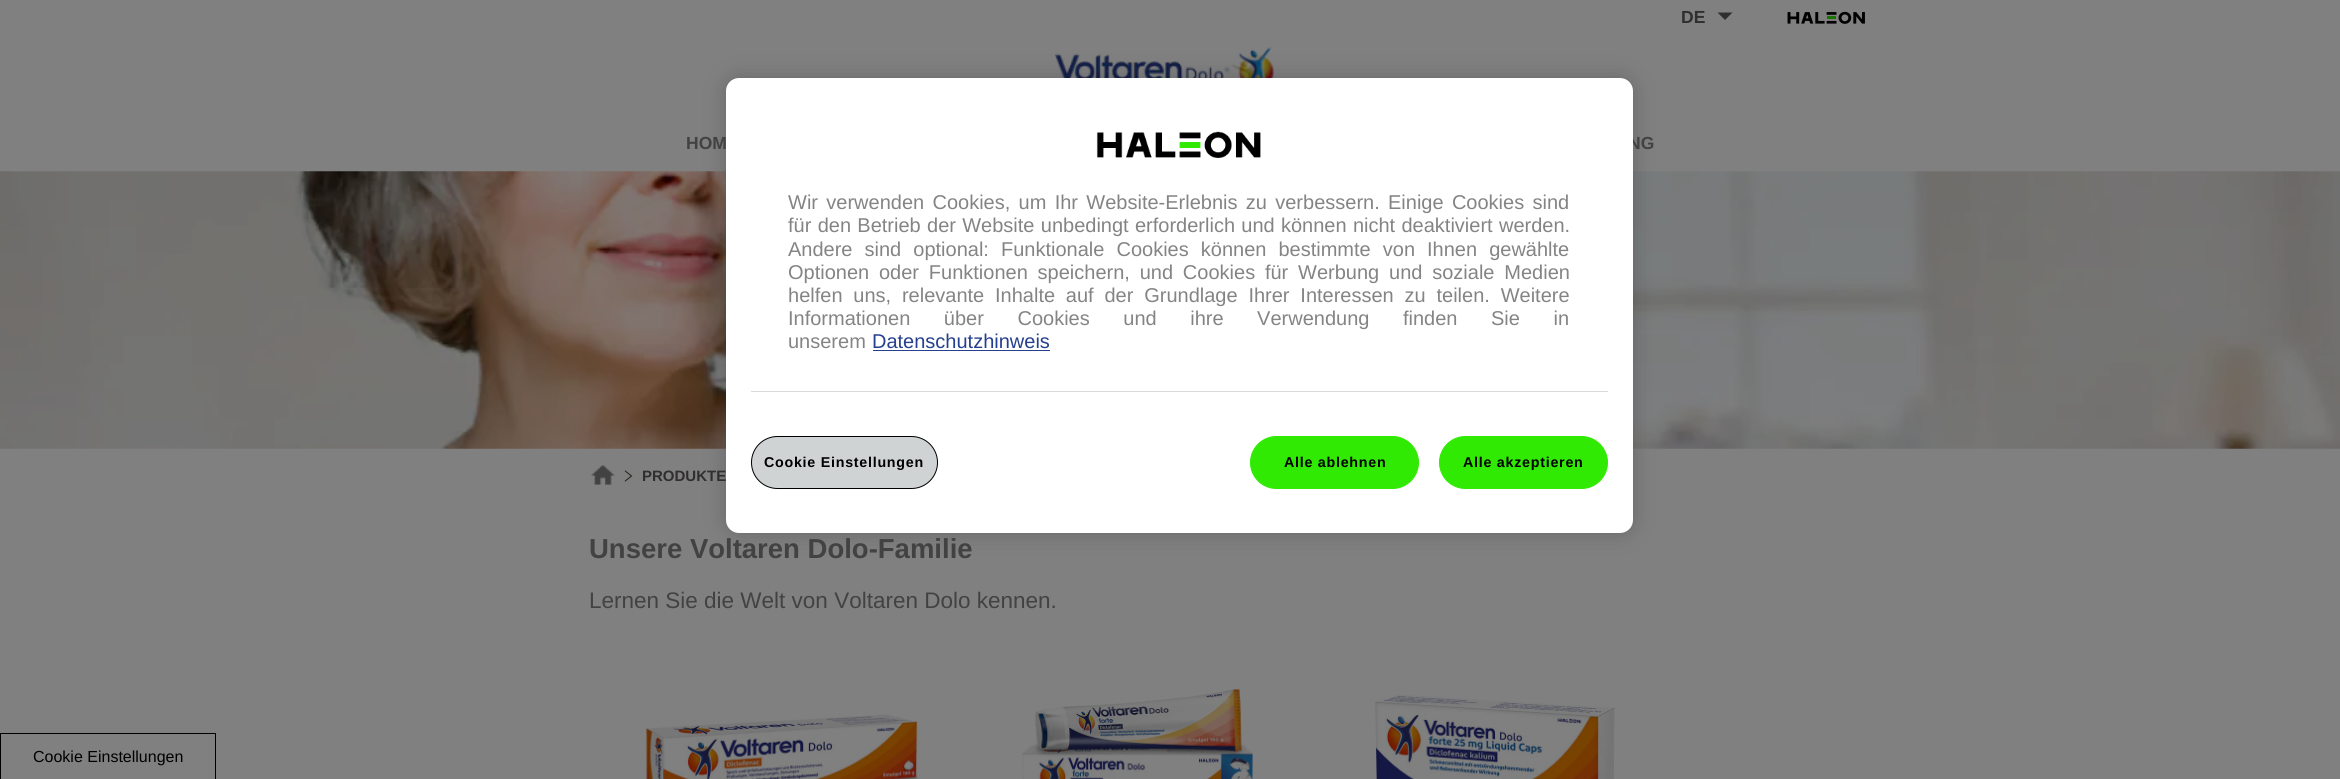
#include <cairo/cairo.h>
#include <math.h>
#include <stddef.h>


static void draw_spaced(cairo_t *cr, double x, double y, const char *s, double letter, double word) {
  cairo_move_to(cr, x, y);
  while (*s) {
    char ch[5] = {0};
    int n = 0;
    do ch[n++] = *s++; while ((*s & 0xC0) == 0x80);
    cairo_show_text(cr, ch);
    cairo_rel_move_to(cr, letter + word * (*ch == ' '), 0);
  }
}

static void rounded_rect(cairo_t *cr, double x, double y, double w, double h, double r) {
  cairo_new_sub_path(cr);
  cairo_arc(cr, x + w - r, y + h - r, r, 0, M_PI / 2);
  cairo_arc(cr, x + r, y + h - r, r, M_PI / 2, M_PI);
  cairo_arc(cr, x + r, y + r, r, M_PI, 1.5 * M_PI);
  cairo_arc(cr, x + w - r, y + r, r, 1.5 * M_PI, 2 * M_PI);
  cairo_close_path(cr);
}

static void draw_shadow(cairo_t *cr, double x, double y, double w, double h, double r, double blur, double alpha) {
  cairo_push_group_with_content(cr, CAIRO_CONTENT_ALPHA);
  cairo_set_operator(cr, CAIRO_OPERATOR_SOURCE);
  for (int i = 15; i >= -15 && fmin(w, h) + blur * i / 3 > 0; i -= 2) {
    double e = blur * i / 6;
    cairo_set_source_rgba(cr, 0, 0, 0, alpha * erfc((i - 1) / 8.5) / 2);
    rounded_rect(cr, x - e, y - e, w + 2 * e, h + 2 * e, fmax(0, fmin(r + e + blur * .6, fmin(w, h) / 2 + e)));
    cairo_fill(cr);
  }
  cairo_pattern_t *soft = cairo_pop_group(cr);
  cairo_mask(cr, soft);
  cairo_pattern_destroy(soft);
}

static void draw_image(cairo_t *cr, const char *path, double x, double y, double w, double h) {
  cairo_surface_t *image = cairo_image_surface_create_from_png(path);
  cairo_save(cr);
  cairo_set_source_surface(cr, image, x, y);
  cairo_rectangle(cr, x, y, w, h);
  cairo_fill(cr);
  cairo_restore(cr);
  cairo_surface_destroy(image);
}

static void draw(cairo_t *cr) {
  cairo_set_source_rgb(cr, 128 / 255.0, 128 / 255.0, 128 / 255.0);
  cairo_paint(cr);
  cairo_set_source_rgb(cr, 48 / 255.0, 46 / 255.0, 46 / 255.0);
  cairo_new_path(cr);
  cairo_move_to(cr, 1717.5, 12.5);
  cairo_line_to(cr, 1732.5, 12.5);
  cairo_line_to(cr, 1725, 20);
  cairo_close_path(cr);
  cairo_fill(cr);
  draw_image(cr, "images/1.png", 1787, 11, 78, 13);
  draw_image(cr, "images/2.png", 1055, 47, 220, 31);
  draw_image(cr, "images/3.png", 0, 171, 2340, 278);
  draw_image(cr, "images/4.png", 591, 465, 24, 20);
  draw_image(cr, "images/5.png", 624, 470, 9, 12);
  draw_image(cr, "images/6.png", 646, 714, 272, 65);
  draw_image(cr, "images/7.png", 1022, 689, 232, 90);
  draw_image(cr, "images/8.png", 1375, 694, 240, 85);
  cairo_set_source_rgb(cr, 0, 0, 0);
  draw_shadow(cr, 726, 78, 907, 455, 13, 11, 0.2);
  cairo_rectangle(cr, 0.5, 733.5, 215, 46);
  cairo_set_source_rgb(cr, 0, 0, 0);
  cairo_set_line_width(cr, 1);
  cairo_stroke(cr);
  cairo_select_font_face(cr, "Liberation Sans", CAIRO_FONT_SLANT_NORMAL, CAIRO_FONT_WEIGHT_BOLD);
  cairo_set_font_size(cr, 17.5);
  cairo_set_source_rgb(cr, 48 / 255.0, 46 / 255.0, 46 / 255.0);
  cairo_move_to(cr, 1681, 23);
  cairo_show_text(cr, "DE");
  cairo_set_source_rgb(cr, 66 / 255.0, 66 / 255.0, 66 / 255.0);
  cairo_move_to(cr, 686, 149);
  cairo_show_text(cr, "HOM");
  cairo_move_to(cr, 1628, 149);
  cairo_show_text(cr, "NG");
  cairo_set_font_size(cr, 15);
  cairo_set_source_rgb(cr, 48 / 255.0, 46 / 255.0, 46 / 255.0);
  cairo_move_to(cr, 642, 481);
  cairo_show_text(cr, "PRODUKTE");
  cairo_set_font_size(cr, 27.5);
  cairo_set_source_rgb(cr, 66 / 255.0, 66 / 255.0, 66 / 255.0);
  cairo_move_to(cr, 589, 558);
  cairo_show_text(cr, "Unsere Voltaren Dolo-Familie");
  cairo_select_font_face(cr, "Liberation Sans", CAIRO_FONT_SLANT_NORMAL, CAIRO_FONT_WEIGHT_NORMAL);
  cairo_set_font_size(cr, 22.5);
  cairo_move_to(cr, 589, 608);
  cairo_show_text(cr, "Lernen Sie die Welt von Voltaren Dolo kennen.");
  cairo_set_source_rgb(cr, 1, 1, 1);
  rounded_rect(cr, 726, 78, 907, 455, 13);
  cairo_fill(cr);
  draw_image(cr, "images/9.png", 1096, 131, 165, 27);
  cairo_set_font_size(cr, 20);
  cairo_set_source_rgb(cr, 132 / 255.0, 132 / 255.0, 132 / 255.0);
  draw_spaced(cr, 788, 209, "Wir verwenden Cookies, um Ihr Website-Erlebnis zu verbessern. Einige Cookies sind", 0, 2.75);
  draw_spaced(cr, 788, 232, "für den Betrieb der Website unbedingt erforderlich und können nicht deaktiviert werden.", 0, 0.75);
  draw_spaced(cr, 788, 256, "Andere sind optional: Funktionale Cookies können bestimmte von Ihnen gewählte", 0, 6.5);
  draw_spaced(cr, 788, 279, "Optionen oder Funktionen speichern, und Cookies für Werbung und soziale Medien", 0, 4.25);
  draw_spaced(cr, 788, 302, "helfen uns, relevante Inhalte auf der Grundlage Ihrer Interessen zu teilen. Weitere", 0, 5.25);
  draw_spaced(cr, 788, 325, "Informationen über Cookies und ihre Verwendung finden Sie in", 0, 28);
  cairo_move_to(cr, 788, 348);
  cairo_show_text(cr, "unserem");
  cairo_set_source_rgb(cr, 38 / 255.0, 64 / 255.0, 142 / 255.0);
  cairo_move_to(cr, 872, 348);
  cairo_show_text(cr, "Datenschutzhinweis");
  cairo_rectangle(cr, 873, 350, 177, 1);
  cairo_fill(cr);
  cairo_set_source_rgb(cr, 217 / 255.0, 217 / 255.0, 217 / 255.0);
  cairo_rectangle(cr, 751, 391, 857, 1);
  cairo_fill(cr);
  cairo_set_source_rgb(cr, 208 / 255.0, 211 / 255.0, 212 / 255.0);
  rounded_rect(cr, 751.5, 436.5, 186, 52, 26);
  cairo_fill_preserve(cr);
  cairo_set_source_rgb(cr, 0, 0, 0);
  cairo_stroke(cr);
  cairo_select_font_face(cr, "Liberation Sans", CAIRO_FONT_SLANT_NORMAL, CAIRO_FONT_WEIGHT_BOLD);
  cairo_set_font_size(cr, 14.25);
  draw_spaced(cr, 764, 467, "Cookie Einstellungen", 0.75, 0);
  cairo_set_source_rgb(cr, 48 / 255.0, 234 / 255.0, 3 / 255.0);
  rounded_rect(cr, 1250.5, 436.5, 168, 52, 26);
  cairo_fill_preserve(cr);
  cairo_stroke(cr);
  cairo_set_source_rgb(cr, 0, 0, 0);
  draw_spaced(cr, 1284, 467, "Alle ablehnen", 0.75, 0);
  cairo_set_source_rgb(cr, 48 / 255.0, 234 / 255.0, 3 / 255.0);
  rounded_rect(cr, 1439.5, 436.5, 168, 52, 26);
  cairo_fill_preserve(cr);
  cairo_stroke(cr);
  cairo_set_source_rgb(cr, 0, 0, 0);
  draw_spaced(cr, 1463, 467, "Alle akzeptieren", 0.75, 0);
  cairo_select_font_face(cr, "Liberation Sans", CAIRO_FONT_SLANT_NORMAL, CAIRO_FONT_WEIGHT_NORMAL);
  cairo_set_font_size(cr, 16);
  cairo_move_to(cr, 33, 762);
  cairo_show_text(cr, "Cookie Einstellungen");
}

int main(void) {
  cairo_surface_t *surface = cairo_image_surface_create(CAIRO_FORMAT_RGB24, 2340, 779);
  cairo_t *cr = cairo_create(surface);
  cairo_font_options_t *options = cairo_font_options_create();
  cairo_font_options_set_hint_metrics(options, CAIRO_HINT_METRICS_OFF);
  cairo_font_options_set_hint_style(options, CAIRO_HINT_STYLE_NONE);
  cairo_set_font_options(cr, options);
  cairo_set_miter_limit(cr, 4);
  draw(cr);
  cairo_surface_write_to_png(surface, "out.png");
  cairo_font_options_destroy(options);
  cairo_destroy(cr);
  cairo_surface_destroy(surface);
  return 0;
}
